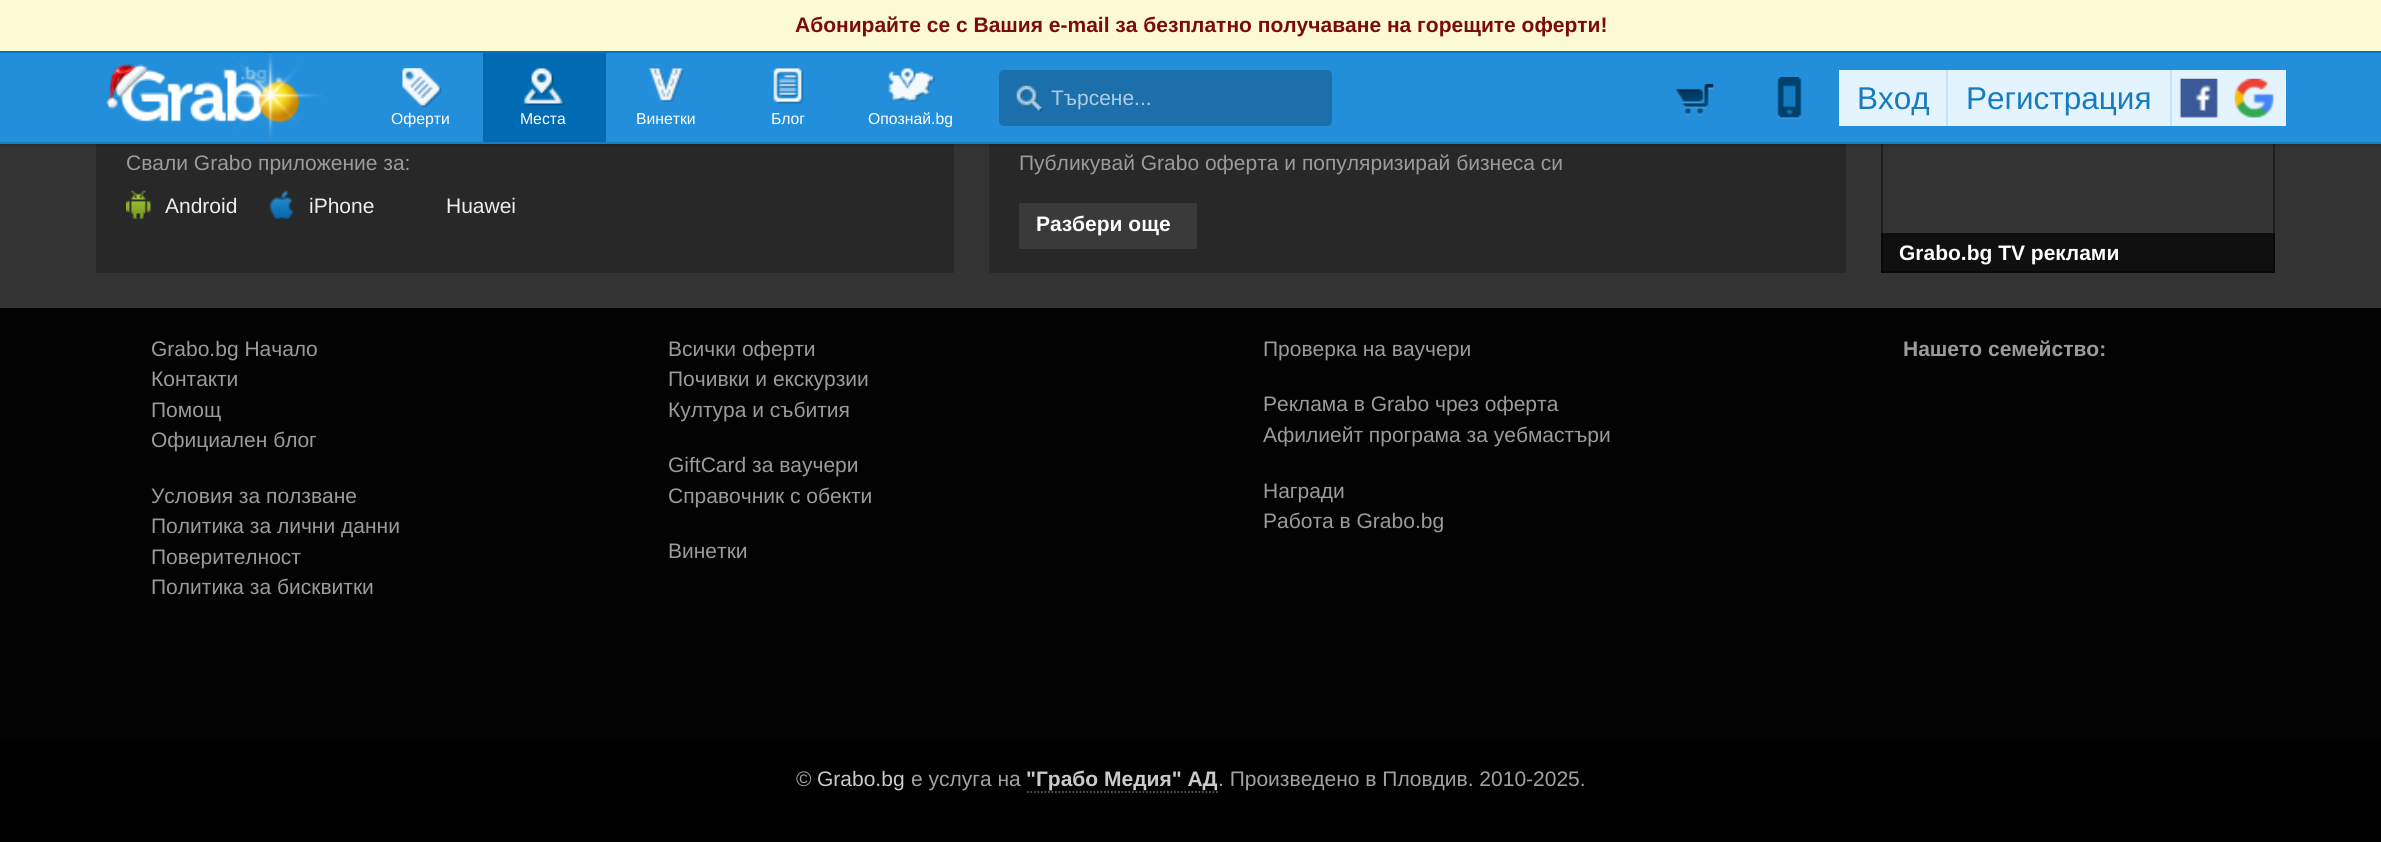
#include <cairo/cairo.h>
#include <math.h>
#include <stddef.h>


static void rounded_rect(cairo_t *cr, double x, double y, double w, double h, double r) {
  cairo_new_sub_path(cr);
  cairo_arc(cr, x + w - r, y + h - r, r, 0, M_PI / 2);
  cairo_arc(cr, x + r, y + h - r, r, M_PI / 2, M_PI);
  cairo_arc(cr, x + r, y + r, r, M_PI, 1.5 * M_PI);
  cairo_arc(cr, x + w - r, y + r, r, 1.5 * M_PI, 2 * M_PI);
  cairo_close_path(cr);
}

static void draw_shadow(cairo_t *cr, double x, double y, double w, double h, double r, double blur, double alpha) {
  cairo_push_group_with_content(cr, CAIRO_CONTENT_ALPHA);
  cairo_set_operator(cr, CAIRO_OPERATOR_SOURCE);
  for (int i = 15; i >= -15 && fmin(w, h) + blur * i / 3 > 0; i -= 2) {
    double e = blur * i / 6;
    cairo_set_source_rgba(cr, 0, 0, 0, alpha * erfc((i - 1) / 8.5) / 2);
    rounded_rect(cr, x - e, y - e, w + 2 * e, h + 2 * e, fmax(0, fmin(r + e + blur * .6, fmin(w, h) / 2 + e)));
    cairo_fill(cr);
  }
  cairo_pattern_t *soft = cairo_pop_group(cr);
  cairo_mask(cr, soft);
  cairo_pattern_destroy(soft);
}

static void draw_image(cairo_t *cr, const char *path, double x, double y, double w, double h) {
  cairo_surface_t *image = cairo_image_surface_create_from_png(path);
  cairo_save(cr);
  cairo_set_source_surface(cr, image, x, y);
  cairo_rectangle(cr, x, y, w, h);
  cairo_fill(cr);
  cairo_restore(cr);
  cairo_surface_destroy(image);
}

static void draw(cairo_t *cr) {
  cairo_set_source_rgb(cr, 51 / 255.0, 51 / 255.0, 51 / 255.0);
  cairo_paint(cr);
  cairo_set_source_rgb(cr, 252 / 255.0, 250 / 255.0, 212 / 255.0);
  cairo_rectangle(cr, 0, 0, 2381, 51);
  cairo_fill(cr);
  cairo_set_source_rgb(cr, 0, 119 / 255.0, 201 / 255.0);
  cairo_rectangle(cr, 0, 51, 2381, 2);
  cairo_fill(cr);
  cairo_set_source_rgb(cr, 31 / 255.0, 31 / 255.0, 31 / 255.0);
  cairo_rectangle(cr, 1881, 144, 2, 89);
  cairo_fill(cr);
  cairo_rectangle(cr, 2273, 144, 2, 89);
  cairo_fill(cr);
  cairo_set_source_rgb(cr, 40 / 255.0, 40 / 255.0, 40 / 255.0);
  cairo_rectangle(cr, 96, 144, 858, 129);
  cairo_fill(cr);
  cairo_rectangle(cr, 989, 144, 857, 129);
  cairo_fill(cr);
  cairo_set_source_rgb(cr, 0, 0, 0);
  draw_shadow(cr, 0, 54, 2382, 91, 0, 2, 0.2);
  cairo_set_source_rgb(cr, 35 / 255.0, 143 / 255.0, 219 / 255.0);
  cairo_rectangle(cr, 0, 53, 2381, 89);
  cairo_fill(cr);
  cairo_set_source_rgb(cr, 25 / 255.0, 125 / 255.0, 193 / 255.0);
  cairo_rectangle(cr, 0, 142, 2381, 2);
  cairo_fill(cr);
  draw_image(cr, "images/1.png", 106, 53, 217, 88);
  cairo_set_source_rgb(cr, 27 / 255.0, 112 / 255.0, 171 / 255.0);
  rounded_rect(cr, 999, 70, 333, 56, 5);
  cairo_fill(cr);
  draw_image(cr, "images/2.png", 1016, 85, 27, 27);
  draw_image(cr, "images/3.png", 402, 68, 40, 40);
  cairo_set_source_rgb(cr, 0, 107 / 255.0, 179 / 255.0);
  cairo_rectangle(cr, 483, 53, 123, 89);
  cairo_fill(cr);
  draw_image(cr, "images/4.png", 522, 68, 43, 38);
  draw_image(cr, "images/5.png", 648, 68, 37, 34);
  draw_image(cr, "images/6.png", 773, 68, 31, 36);
  draw_image(cr, "images/7.png", 888, 68, 47, 34);
  draw_image(cr, "images/8.png", 1676, 84, 38, 32);
  draw_image(cr, "images/9.png", 1777, 77, 25, 42);
  cairo_set_source_rgb(cr, 194 / 255.0, 230 / 255.0, 253 / 255.0);
  cairo_rectangle(cr, 1946, 70, 2, 56);
  cairo_fill(cr);
  cairo_rectangle(cr, 2170, 70, 2, 56);
  cairo_fill(cr);
  cairo_set_source_rgb(cr, 227 / 255.0, 244 / 255.0, 1);
  cairo_rectangle(cr, 2172, 70, 114, 56);
  cairo_fill(cr);
  draw_image(cr, "images/10.png", 2234, 78, 40, 40);
  cairo_rectangle(cr, 1839, 70, 107, 56);
  cairo_fill(cr);
  cairo_rectangle(cr, 1948, 70, 222, 56);
  cairo_fill(cr);
  draw_image(cr, "images/11.png", 2179, 78, 39, 40);
  cairo_set_source_rgb(cr, 15 / 255.0, 15 / 255.0, 15 / 255.0);
  cairo_rectangle(cr, 1883, 233, 390, 38);
  cairo_fill(cr);
  cairo_set_source_rgb(cr, 9 / 255.0, 9 / 255.0, 9 / 255.0);
  cairo_rectangle(cr, 1881, 233, 2, 40);
  cairo_fill(cr);
  cairo_rectangle(cr, 2273, 233, 2, 40);
  cairo_fill(cr);
  draw_image(cr, "images/12.png", 126, 190, 25, 29);
  draw_image(cr, "images/13.png", 269, 190, 25, 29);
  cairo_set_source_rgb(cr, 58 / 255.0, 58 / 255.0, 58 / 255.0);
  cairo_rectangle(cr, 1019, 203, 178, 46);
  cairo_fill(cr);
  cairo_set_source_rgb(cr, 9 / 255.0, 9 / 255.0, 9 / 255.0);
  cairo_rectangle(cr, 1881, 271, 394, 2);
  cairo_fill(cr);
  cairo_set_source_rgb(cr, 6 / 255.0, 6 / 255.0, 6 / 255.0);
  cairo_rectangle(cr, 1881, 271, 2, 2);
  cairo_fill(cr);
  cairo_rectangle(cr, 2273, 271, 2, 2);
  cairo_fill(cr);
  cairo_set_source_rgb(cr, 3 / 255.0, 3 / 255.0, 3 / 255.0);
  cairo_rectangle(cr, 0, 308, 2381, 432);
  cairo_fill(cr);
  cairo_set_source_rgb(cr, 0, 0, 0);
  cairo_rectangle(cr, 0, 740, 2381, 102);
  cairo_fill(cr);
  cairo_new_path(cr);
  cairo_move_to(cr, 1027, 792);
  cairo_line_to(cr, 1218, 792);
  cairo_set_source_rgb(cr, 87 / 255.0, 87 / 255.0, 87 / 255.0);
  cairo_set_line_width(cr, 1.8);
  cairo_set_dash(cr, (double[]){1.75, 1.75}, 2, 0);
  cairo_stroke(cr);
  cairo_select_font_face(cr, "Liberation Sans", CAIRO_FONT_SLANT_NORMAL, CAIRO_FONT_WEIGHT_BOLD);
  cairo_set_font_size(cr, 21);
  cairo_set_source_rgb(cr, 123 / 255.0, 11 / 255.0, 11 / 255.0);
  cairo_move_to(cr, 795, 32);
  cairo_show_text(cr, "Абонирайте се с Вашия e-mail за безплатно получаване на горещите оферти!");
  cairo_select_font_face(cr, "Liberation Sans", CAIRO_FONT_SLANT_NORMAL, CAIRO_FONT_WEIGHT_NORMAL);
  cairo_set_source_rgb(cr, 175 / 255.0, 205 / 255.0, 226 / 255.0);
  cairo_move_to(cr, 1051, 105);
  cairo_show_text(cr, "Търсене...");
  cairo_set_font_size(cr, 15.75);
  cairo_set_source_rgb(cr, 1, 1, 1);
  cairo_move_to(cr, 391, 124);
  cairo_show_text(cr, "Оферти");
  cairo_move_to(cr, 520, 124);
  cairo_show_text(cr, "Места");
  cairo_move_to(cr, 636, 124);
  cairo_show_text(cr, "Винетки");
  cairo_move_to(cr, 771, 124);
  cairo_show_text(cr, "Блог");
  cairo_move_to(cr, 868, 124);
  cairo_show_text(cr, "Опознай.bg");
  cairo_set_font_size(cr, 31.5);
  cairo_set_source_rgb(cr, 22 / 255.0, 123 / 255.0, 191 / 255.0);
  cairo_move_to(cr, 1857, 109);
  cairo_show_text(cr, "Вход");
  cairo_move_to(cr, 1966, 109);
  cairo_show_text(cr, "Регистрация");
  cairo_set_font_size(cr, 21);
  cairo_set_source_rgb(cr, 155 / 255.0, 155 / 255.0, 155 / 255.0);
  cairo_move_to(cr, 126, 170);
  cairo_show_text(cr, "Свали Grabo приложение за:");
  cairo_set_source_rgb(cr, 238 / 255.0, 238 / 255.0, 238 / 255.0);
  cairo_move_to(cr, 165, 213);
  cairo_show_text(cr, "Android");
  cairo_move_to(cr, 309, 213);
  cairo_show_text(cr, "iPhone");
  cairo_move_to(cr, 446, 213);
  cairo_show_text(cr, "Huawei");
  cairo_set_source_rgb(cr, 155 / 255.0, 155 / 255.0, 155 / 255.0);
  cairo_move_to(cr, 1019, 170);
  cairo_show_text(cr, "Публикувай Grabo оферта и популяризирай бизнеса си");
  cairo_select_font_face(cr, "Liberation Sans", CAIRO_FONT_SLANT_NORMAL, CAIRO_FONT_WEIGHT_BOLD);
  cairo_set_source_rgb(cr, 1, 1, 1);
  cairo_move_to(cr, 1036, 231);
  cairo_show_text(cr, "Разбери още");
  cairo_move_to(cr, 1899, 260);
  cairo_show_text(cr, "Grabo.bg TV реклами");
  cairo_select_font_face(cr, "Liberation Sans", CAIRO_FONT_SLANT_NORMAL, CAIRO_FONT_WEIGHT_NORMAL);
  cairo_set_source_rgb(cr, 155 / 255.0, 155 / 255.0, 155 / 255.0);
  cairo_move_to(cr, 151, 356);
  cairo_show_text(cr, "Grabo.bg Начало");
  cairo_move_to(cr, 151, 386);
  cairo_show_text(cr, "Контакти");
  cairo_move_to(cr, 151, 417);
  cairo_show_text(cr, "Помощ");
  cairo_move_to(cr, 151, 447);
  cairo_show_text(cr, "Официален блог");
  cairo_move_to(cr, 151, 503);
  cairo_show_text(cr, "Условия за ползване");
  cairo_move_to(cr, 151, 533);
  cairo_show_text(cr, "Политика за лични данни");
  cairo_move_to(cr, 151, 564);
  cairo_show_text(cr, "Поверителност");
  cairo_move_to(cr, 151, 594);
  cairo_show_text(cr, "Политика за бисквитки");
  cairo_move_to(cr, 668, 356);
  cairo_show_text(cr, "Всички оферти");
  cairo_move_to(cr, 668, 386);
  cairo_show_text(cr, "Почивки и екскурзии");
  cairo_move_to(cr, 668, 417);
  cairo_show_text(cr, "Култура и събития");
  cairo_move_to(cr, 668, 472);
  cairo_show_text(cr, "GiftCard за ваучери");
  cairo_move_to(cr, 668, 503);
  cairo_show_text(cr, "Справочник с обекти");
  cairo_move_to(cr, 668, 558);
  cairo_show_text(cr, "Винетки");
  cairo_move_to(cr, 1263, 356);
  cairo_show_text(cr, "Проверка на ваучери");
  cairo_move_to(cr, 1263, 411);
  cairo_show_text(cr, "Реклама в Grabo чрез оферта");
  cairo_move_to(cr, 1263, 442);
  cairo_show_text(cr, "Афилиейт програма за уебмастъри");
  cairo_move_to(cr, 1263, 498);
  cairo_show_text(cr, "Награди");
  cairo_move_to(cr, 1263, 528);
  cairo_show_text(cr, "Работа в Grabo.bg");
  cairo_select_font_face(cr, "Liberation Sans", CAIRO_FONT_SLANT_NORMAL, CAIRO_FONT_WEIGHT_BOLD);
  cairo_move_to(cr, 1903, 356);
  cairo_show_text(cr, "Нашето семейство:");
  cairo_select_font_face(cr, "Liberation Sans", CAIRO_FONT_SLANT_NORMAL, CAIRO_FONT_WEIGHT_NORMAL);
  cairo_set_source_rgb(cr, 162 / 255.0, 162 / 255.0, 162 / 255.0);
  cairo_move_to(cr, 796, 786);
  cairo_show_text(cr, "©");
  cairo_set_source_rgb(cr, 202 / 255.0, 202 / 255.0, 202 / 255.0);
  cairo_move_to(cr, 817, 786);
  cairo_show_text(cr, "Grabo.bg");
  cairo_set_source_rgb(cr, 162 / 255.0, 162 / 255.0, 162 / 255.0);
  cairo_move_to(cr, 911, 786);
  cairo_show_text(cr, "е услуга на");
  cairo_select_font_face(cr, "Liberation Sans", CAIRO_FONT_SLANT_NORMAL, CAIRO_FONT_WEIGHT_BOLD);
  cairo_set_source_rgb(cr, 202 / 255.0, 202 / 255.0, 202 / 255.0);
  cairo_move_to(cr, 1026, 786);
  cairo_show_text(cr, "\"Грабо Медия\" АД");
  cairo_select_font_face(cr, "Liberation Sans", CAIRO_FONT_SLANT_NORMAL, CAIRO_FONT_WEIGHT_NORMAL);
  cairo_set_source_rgb(cr, 162 / 255.0, 162 / 255.0, 162 / 255.0);
  cairo_move_to(cr, 1218, 786);
  cairo_show_text(cr, ". Произведено в Пловдив. 2010-2025.");
}

int main(void) {
  cairo_surface_t *surface = cairo_image_surface_create(CAIRO_FORMAT_RGB24, 2381, 842);
  cairo_t *cr = cairo_create(surface);
  cairo_font_options_t *options = cairo_font_options_create();
  cairo_font_options_set_hint_metrics(options, CAIRO_HINT_METRICS_OFF);
  cairo_font_options_set_hint_style(options, CAIRO_HINT_STYLE_NONE);
  cairo_set_font_options(cr, options);
  cairo_set_miter_limit(cr, 4);
  draw(cr);
  cairo_surface_write_to_png(surface, "out.png");
  cairo_font_options_destroy(options);
  cairo_destroy(cr);
  cairo_surface_destroy(surface);
  return 0;
}
